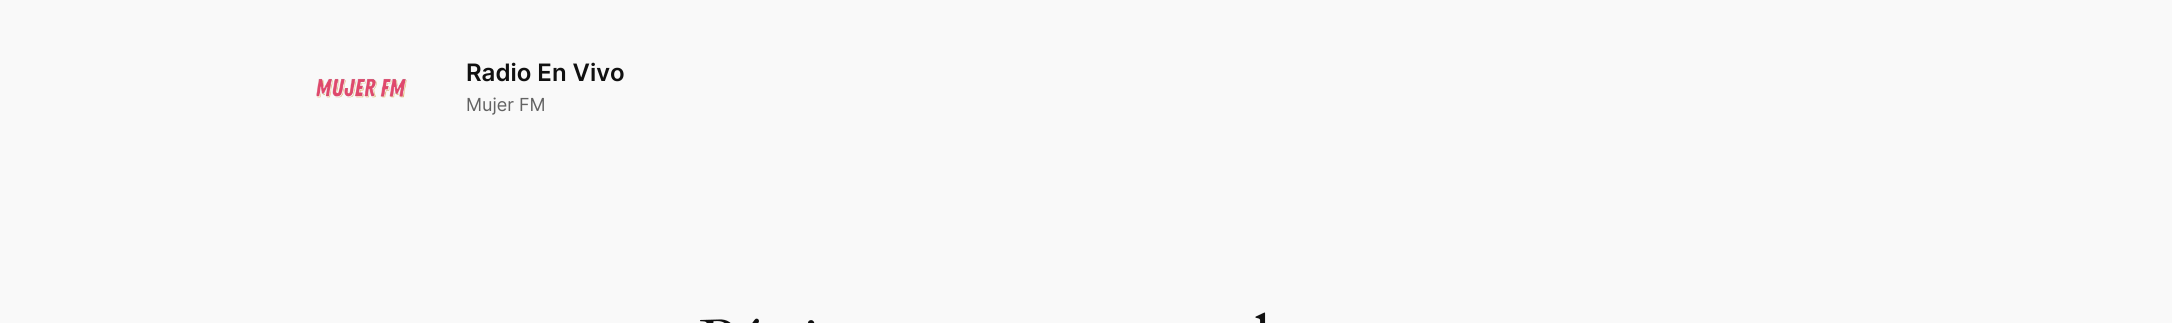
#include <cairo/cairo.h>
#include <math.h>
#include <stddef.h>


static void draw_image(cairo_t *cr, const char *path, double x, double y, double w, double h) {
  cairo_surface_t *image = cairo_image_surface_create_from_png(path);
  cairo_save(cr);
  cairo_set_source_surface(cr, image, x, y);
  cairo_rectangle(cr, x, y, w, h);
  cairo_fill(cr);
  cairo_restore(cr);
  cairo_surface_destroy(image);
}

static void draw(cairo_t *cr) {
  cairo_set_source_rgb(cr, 249 / 255.0, 249 / 255.0, 249 / 255.0);
  cairo_paint(cr);
  draw_image(cr, "images/1.png", 316, 78, 91, 20);
  draw_image(cr, "images/2.png", 700, 312, 566, 11);
  cairo_select_font_face(cr, "Inter SemiBold", CAIRO_FONT_SLANT_NORMAL, CAIRO_FONT_WEIGHT_NORMAL);
  cairo_set_font_size(cr, 24);
  cairo_set_source_rgb(cr, 17 / 255.0, 17 / 255.0, 17 / 255.0);
  cairo_move_to(cr, 466, 81);
  cairo_show_text(cr, "Radio En Vivo");
  cairo_select_font_face(cr, "Inter", CAIRO_FONT_SLANT_NORMAL, CAIRO_FONT_WEIGHT_NORMAL);
  cairo_set_font_size(cr, 18);
  cairo_set_source_rgb(cr, 99 / 255.0, 99 / 255.0, 99 / 255.0);
  cairo_move_to(cr, 466, 111);
  cairo_show_text(cr, "Mujer FM");
}

int main(void) {
  cairo_surface_t *surface = cairo_image_surface_create(CAIRO_FORMAT_RGB24, 2172, 323);
  cairo_t *cr = cairo_create(surface);
  cairo_font_options_t *options = cairo_font_options_create();
  cairo_font_options_set_hint_metrics(options, CAIRO_HINT_METRICS_OFF);
  cairo_font_options_set_hint_style(options, CAIRO_HINT_STYLE_NONE);
  cairo_set_font_options(cr, options);
  cairo_set_miter_limit(cr, 4);
  draw(cr);
  cairo_surface_write_to_png(surface, "out.png");
  cairo_font_options_destroy(options);
  cairo_destroy(cr);
  cairo_surface_destroy(surface);
  return 0;
}
